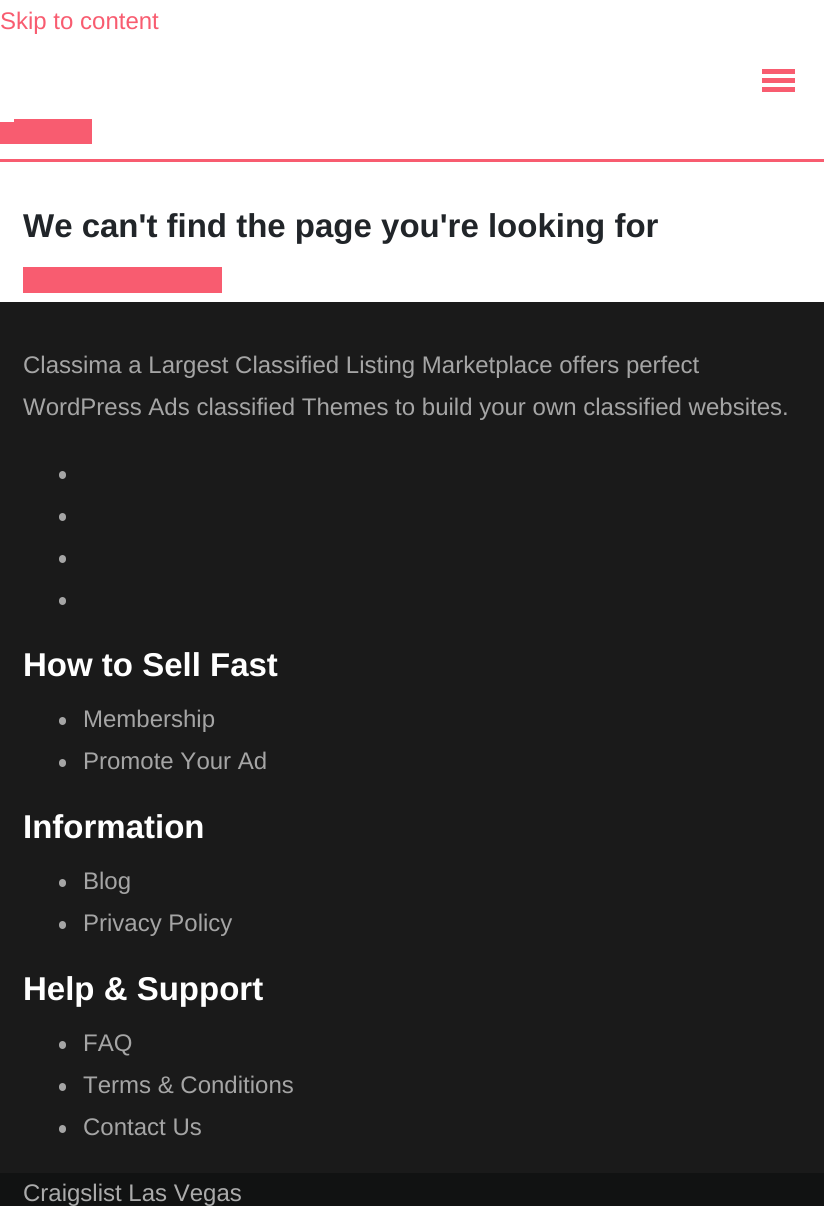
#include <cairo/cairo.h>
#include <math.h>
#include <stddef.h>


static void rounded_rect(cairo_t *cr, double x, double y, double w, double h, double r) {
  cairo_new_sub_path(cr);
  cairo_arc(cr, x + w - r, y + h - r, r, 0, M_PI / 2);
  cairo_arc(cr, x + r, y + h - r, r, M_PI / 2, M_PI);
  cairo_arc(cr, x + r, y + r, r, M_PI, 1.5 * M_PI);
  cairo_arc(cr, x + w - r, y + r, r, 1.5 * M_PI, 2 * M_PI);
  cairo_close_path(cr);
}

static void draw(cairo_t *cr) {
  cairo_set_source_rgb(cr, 1, 1, 1);
  cairo_paint(cr);
  cairo_set_source_rgb(cr, 248 / 255.0, 92 / 255.0, 112 / 255.0);
  cairo_rectangle(cr, 0, 159, 824, 3);
  cairo_fill(cr);
  cairo_rectangle(cr, 762, 69, 33, 5);
  cairo_fill(cr);
  cairo_rectangle(cr, 762, 78, 33, 5);
  cairo_fill(cr);
  cairo_rectangle(cr, 762, 87, 33, 5);
  cairo_fill(cr);
  cairo_rectangle(cr, 0, 122, 14, 22);
  cairo_fill(cr);
  cairo_rectangle(cr, 14, 119, 78, 25);
  cairo_fill(cr);
  cairo_rectangle(cr, 23, 267, 199, 26);
  cairo_fill(cr);
  cairo_set_source_rgb(cr, 26 / 255.0, 26 / 255.0, 26 / 255.0);
  cairo_rectangle(cr, 0, 302, 824, 871);
  cairo_fill(cr);
  cairo_set_source_rgb(cr, 165 / 255.0, 165 / 255.0, 165 / 255.0);
  rounded_rect(cr, 59, 471, 7, 8, 3.5);
  cairo_fill(cr);
  rounded_rect(cr, 59, 513, 7, 8, 3.5);
  cairo_fill(cr);
  rounded_rect(cr, 59, 555, 7, 8, 3.5);
  cairo_fill(cr);
  rounded_rect(cr, 59, 597, 7, 8, 3.5);
  cairo_fill(cr);
  rounded_rect(cr, 59, 717, 7, 8, 3.5);
  cairo_fill(cr);
  rounded_rect(cr, 59, 759, 7, 8, 3.5);
  cairo_fill(cr);
  rounded_rect(cr, 59, 879, 7, 8, 3.5);
  cairo_fill(cr);
  rounded_rect(cr, 59, 921, 7, 8, 3.5);
  cairo_fill(cr);
  rounded_rect(cr, 59, 1041, 7, 8, 3.5);
  cairo_fill(cr);
  rounded_rect(cr, 59, 1083, 7, 8, 3.5);
  cairo_fill(cr);
  rounded_rect(cr, 59, 1125, 7, 8, 3.5);
  cairo_fill(cr);
  cairo_set_source_rgb(cr, 17 / 255.0, 18 / 255.0, 18 / 255.0);
  cairo_rectangle(cr, 0, 1173, 824, 33);
  cairo_fill(cr);
  cairo_select_font_face(cr, "Liberation Sans", CAIRO_FONT_SLANT_NORMAL, CAIRO_FONT_WEIGHT_NORMAL);
  cairo_set_font_size(cr, 24);
  cairo_set_source_rgb(cr, 248 / 255.0, 92 / 255.0, 112 / 255.0);
  cairo_move_to(cr, 0, 29);
  cairo_show_text(cr, "Skip to content");
  cairo_select_font_face(cr, "Liberation Sans", CAIRO_FONT_SLANT_NORMAL, CAIRO_FONT_WEIGHT_BOLD);
  cairo_set_font_size(cr, 33);
  cairo_set_source_rgb(cr, 33 / 255.0, 37 / 255.0, 41 / 255.0);
  cairo_move_to(cr, 23, 237);
  cairo_show_text(cr, "We can't find the page you're looking for");
  cairo_select_font_face(cr, "Liberation Sans", CAIRO_FONT_SLANT_NORMAL, CAIRO_FONT_WEIGHT_NORMAL);
  cairo_set_font_size(cr, 24);
  cairo_set_source_rgb(cr, 165 / 255.0, 165 / 255.0, 165 / 255.0);
  cairo_move_to(cr, 23, 373);
  cairo_show_text(cr, "Classima a Largest Classified Listing Marketplace offers perfect");
  cairo_move_to(cr, 23, 415);
  cairo_show_text(cr, "WordPress Ads classified Themes to build your own classified websites.");
  cairo_select_font_face(cr, "Liberation Sans", CAIRO_FONT_SLANT_NORMAL, CAIRO_FONT_WEIGHT_BOLD);
  cairo_set_font_size(cr, 33);
  cairo_set_source_rgb(cr, 1, 1, 1);
  cairo_move_to(cr, 23, 676);
  cairo_show_text(cr, "How to Sell Fast");
  cairo_select_font_face(cr, "Liberation Sans", CAIRO_FONT_SLANT_NORMAL, CAIRO_FONT_WEIGHT_NORMAL);
  cairo_set_font_size(cr, 24);
  cairo_set_source_rgb(cr, 165 / 255.0, 165 / 255.0, 165 / 255.0);
  cairo_move_to(cr, 83, 727);
  cairo_show_text(cr, "Membership");
  cairo_move_to(cr, 83, 769);
  cairo_show_text(cr, "Promote Your Ad");
  cairo_select_font_face(cr, "Liberation Sans", CAIRO_FONT_SLANT_NORMAL, CAIRO_FONT_WEIGHT_BOLD);
  cairo_set_font_size(cr, 33);
  cairo_set_source_rgb(cr, 1, 1, 1);
  cairo_move_to(cr, 23, 838);
  cairo_show_text(cr, "Information");
  cairo_select_font_face(cr, "Liberation Sans", CAIRO_FONT_SLANT_NORMAL, CAIRO_FONT_WEIGHT_NORMAL);
  cairo_set_font_size(cr, 24);
  cairo_set_source_rgb(cr, 165 / 255.0, 165 / 255.0, 165 / 255.0);
  cairo_move_to(cr, 83, 889);
  cairo_show_text(cr, "Blog");
  cairo_move_to(cr, 83, 931);
  cairo_show_text(cr, "Privacy Policy");
  cairo_select_font_face(cr, "Liberation Sans", CAIRO_FONT_SLANT_NORMAL, CAIRO_FONT_WEIGHT_BOLD);
  cairo_set_font_size(cr, 33);
  cairo_set_source_rgb(cr, 1, 1, 1);
  cairo_move_to(cr, 23, 1000);
  cairo_show_text(cr, "Help & Support");
  cairo_select_font_face(cr, "Liberation Sans", CAIRO_FONT_SLANT_NORMAL, CAIRO_FONT_WEIGHT_NORMAL);
  cairo_set_font_size(cr, 24);
  cairo_set_source_rgb(cr, 165 / 255.0, 165 / 255.0, 165 / 255.0);
  cairo_move_to(cr, 83, 1051);
  cairo_show_text(cr, "FAQ");
  cairo_move_to(cr, 83, 1093);
  cairo_show_text(cr, "Terms & Conditions");
  cairo_move_to(cr, 83, 1135);
  cairo_show_text(cr, "Contact Us");
  cairo_set_source_rgb(cr, 171 / 255.0, 171 / 255.0, 171 / 255.0);
  cairo_move_to(cr, 23, 1201);
  cairo_show_text(cr, "Craigslist Las Vegas");
}

int main(void) {
  cairo_surface_t *surface = cairo_image_surface_create(CAIRO_FORMAT_RGB24, 824, 1206);
  cairo_t *cr = cairo_create(surface);
  cairo_font_options_t *options = cairo_font_options_create();
  cairo_font_options_set_hint_metrics(options, CAIRO_HINT_METRICS_OFF);
  cairo_font_options_set_hint_style(options, CAIRO_HINT_STYLE_NONE);
  cairo_set_font_options(cr, options);
  cairo_set_miter_limit(cr, 4);
  draw(cr);
  cairo_surface_write_to_png(surface, "out.png");
  cairo_font_options_destroy(options);
  cairo_destroy(cr);
  cairo_surface_destroy(surface);
  return 0;
}
